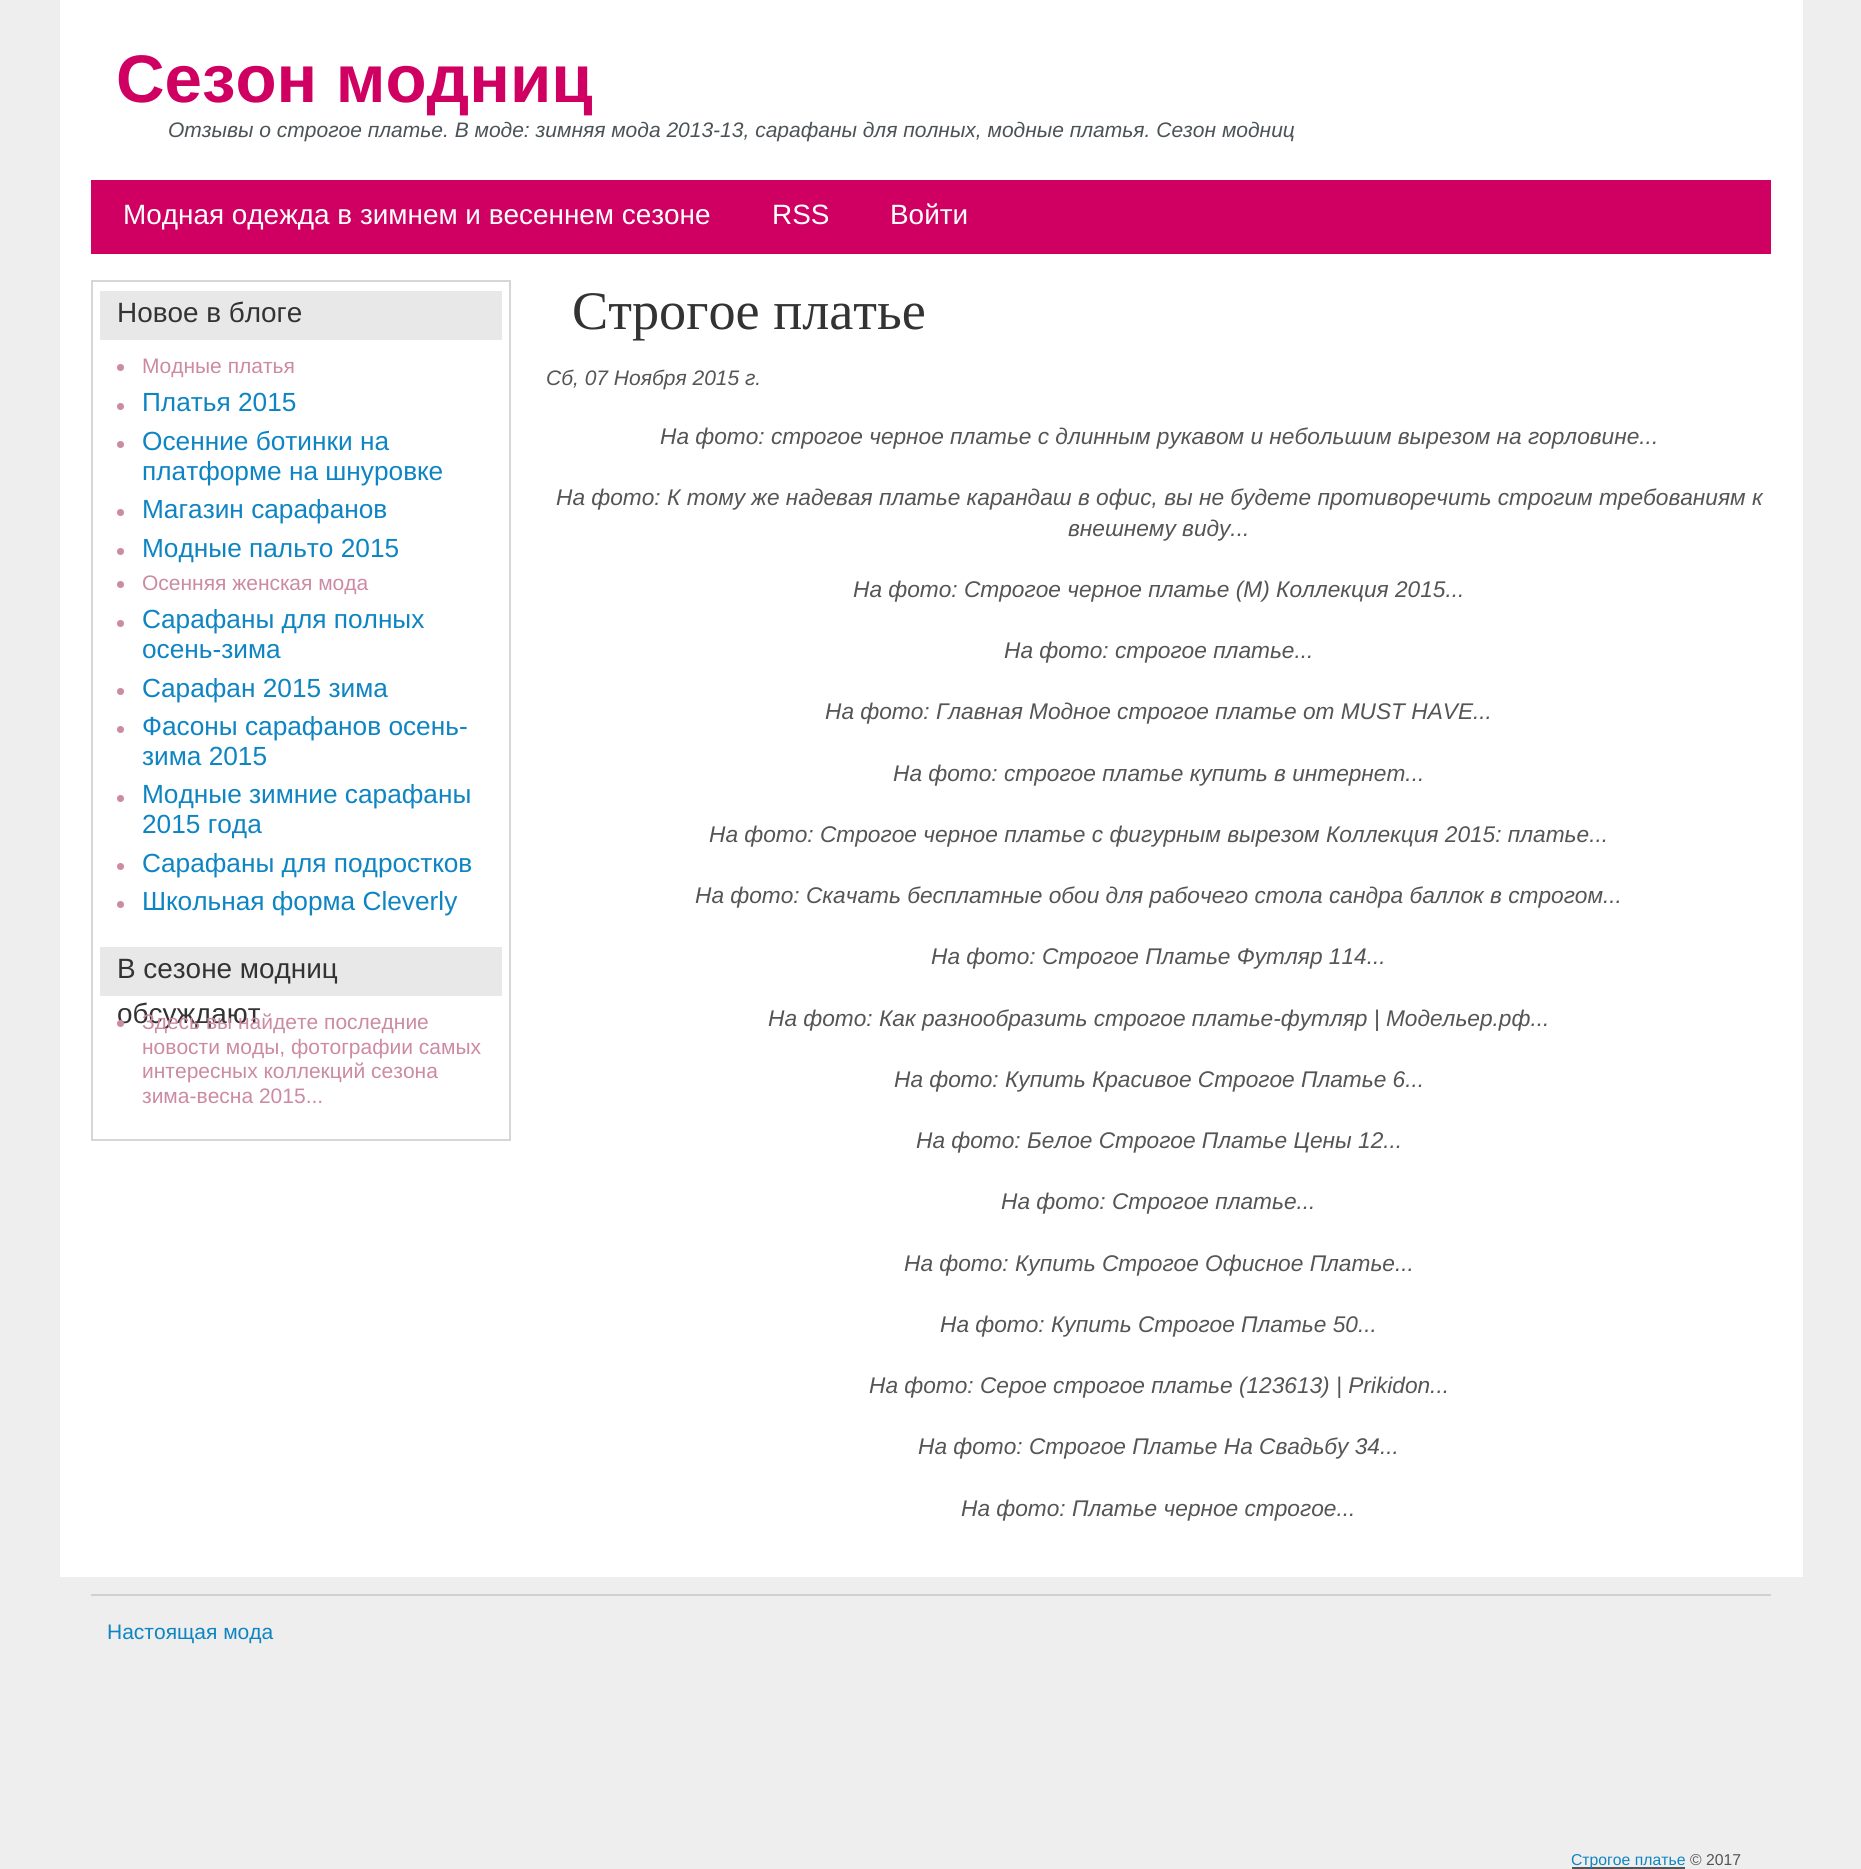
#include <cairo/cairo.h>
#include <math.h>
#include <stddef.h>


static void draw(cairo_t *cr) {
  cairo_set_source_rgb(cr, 238 / 255.0, 238 / 255.0, 238 / 255.0);
  cairo_paint(cr);
  cairo_set_source_rgb(cr, 1, 1, 1);
  cairo_rectangle(cr, 60, 0, 1743, 1577);
  cairo_fill(cr);
  cairo_set_source_rgb(cr, 208 / 255.0, 0, 98 / 255.0);
  cairo_rectangle(cr, 91, 180, 1680, 74);
  cairo_fill(cr);
  cairo_rectangle(cr, 92, 281, 418, 859);
  cairo_set_source_rgb(cr, 214 / 255.0, 214 / 255.0, 214 / 255.0);
  cairo_stroke(cr);
  cairo_set_source_rgb(cr, 232 / 255.0, 232 / 255.0, 232 / 255.0);
  cairo_rectangle(cr, 100, 291, 402, 49);
  cairo_fill(cr);
  cairo_set_source_rgb(cr, 204 / 255.0, 138 / 255.0, 163 / 255.0);
  cairo_arc(cr, 120.5, 367.5, 3.5, 0, 2 * M_PI);
  cairo_fill(cr);
  cairo_arc(cr, 120.5, 406.5, 3.5, 0, 2 * M_PI);
  cairo_fill(cr);
  cairo_arc(cr, 120.5, 444.5, 3.5, 0, 2 * M_PI);
  cairo_fill(cr);
  cairo_arc(cr, 120.5, 512.5, 3.5, 0, 2 * M_PI);
  cairo_fill(cr);
  cairo_arc(cr, 120.5, 551.5, 3.5, 0, 2 * M_PI);
  cairo_fill(cr);
  cairo_arc(cr, 120.5, 584.5, 3.5, 0, 2 * M_PI);
  cairo_fill(cr);
  cairo_arc(cr, 120.5, 623.5, 3.5, 0, 2 * M_PI);
  cairo_fill(cr);
  cairo_arc(cr, 120.5, 691.5, 3.5, 0, 2 * M_PI);
  cairo_fill(cr);
  cairo_arc(cr, 120.5, 729.5, 3.5, 0, 2 * M_PI);
  cairo_fill(cr);
  cairo_arc(cr, 120.5, 798.5, 3.5, 0, 2 * M_PI);
  cairo_fill(cr);
  cairo_arc(cr, 120.5, 866.5, 3.5, 0, 2 * M_PI);
  cairo_fill(cr);
  cairo_arc(cr, 120.5, 904.5, 3.5, 0, 2 * M_PI);
  cairo_fill(cr);
  cairo_set_source_rgb(cr, 232 / 255.0, 232 / 255.0, 232 / 255.0);
  cairo_rectangle(cr, 100, 947, 402, 49);
  cairo_fill(cr);
  cairo_set_source_rgb(cr, 205 / 255.0, 209 / 255.0, 211 / 255.0);
  cairo_rectangle(cr, 91, 1594, 1680, 2);
  cairo_fill(cr);
  cairo_set_source_rgb(cr, 85 / 255.0, 85 / 255.0, 85 / 255.0);
  cairo_rectangle(cr, 1572, 1867, 113, 2);
  cairo_fill(cr);
  cairo_select_font_face(cr, "Liberation Sans", CAIRO_FONT_SLANT_NORMAL, CAIRO_FONT_WEIGHT_BOLD);
  cairo_set_font_size(cr, 67.25);
  cairo_set_source_rgb(cr, 208 / 255.0, 0, 98 / 255.0);
  cairo_move_to(cr, 116, 102);
  cairo_show_text(cr, "Сезон модниц");
  cairo_select_font_face(cr, "Liberation Sans", CAIRO_FONT_SLANT_ITALIC, CAIRO_FONT_WEIGHT_NORMAL);
  cairo_set_font_size(cr, 21);
  cairo_set_source_rgb(cr, 76 / 255.0, 83 / 255.0, 86 / 255.0);
  cairo_move_to(cr, 168, 137);
  cairo_show_text(cr, "Отзывы о строгое платье. В моде: зимняя мода 2013-13, сарафаны для полных, модные платья. Сезон модниц");
  cairo_select_font_face(cr, "Liberation Sans", CAIRO_FONT_SLANT_NORMAL, CAIRO_FONT_WEIGHT_NORMAL);
  cairo_set_font_size(cr, 27.9);
  cairo_set_source_rgb(cr, 1, 1, 1);
  cairo_move_to(cr, 123, 224);
  cairo_show_text(cr, "Модная одежда в зимнем и весеннем сезоне");
  cairo_move_to(cr, 772, 224);
  cairo_show_text(cr, "RSS");
  cairo_move_to(cr, 890, 224);
  cairo_show_text(cr, "Войти");
  cairo_set_source_rgb(cr, 51 / 255.0, 51 / 255.0, 51 / 255.0);
  cairo_move_to(cr, 117, 322);
  cairo_show_text(cr, "Новое в блоге");
  cairo_set_font_size(cr, 21);
  cairo_set_source_rgb(cr, 204 / 255.0, 138 / 255.0, 163 / 255.0);
  cairo_move_to(cr, 142, 373);
  cairo_show_text(cr, "Модные платья");
  cairo_set_font_size(cr, 26.25);
  cairo_set_source_rgb(cr, 14 / 255.0, 133 / 255.0, 194 / 255.0);
  cairo_move_to(cr, 142, 411);
  cairo_show_text(cr, "Платья 2015");
  cairo_move_to(cr, 142, 450);
  cairo_show_text(cr, "Осенние ботинки на");
  cairo_move_to(cr, 142, 480);
  cairo_show_text(cr, "платформе на шнуровке");
  cairo_move_to(cr, 142, 518);
  cairo_show_text(cr, "Магазин сарафанов");
  cairo_move_to(cr, 142, 557);
  cairo_show_text(cr, "Модные пальто 2015");
  cairo_set_font_size(cr, 21);
  cairo_set_source_rgb(cr, 204 / 255.0, 138 / 255.0, 163 / 255.0);
  cairo_move_to(cr, 142, 590);
  cairo_show_text(cr, "Осенняя женская мода");
  cairo_set_font_size(cr, 26.25);
  cairo_set_source_rgb(cr, 14 / 255.0, 133 / 255.0, 194 / 255.0);
  cairo_move_to(cr, 142, 628);
  cairo_show_text(cr, "Сарафаны для полных");
  cairo_move_to(cr, 142, 658);
  cairo_show_text(cr, "осень-зима");
  cairo_move_to(cr, 142, 697);
  cairo_show_text(cr, "Сарафан 2015 зима");
  cairo_move_to(cr, 142, 735);
  cairo_show_text(cr, "Фасоны сарафанов осень-");
  cairo_move_to(cr, 142, 765);
  cairo_show_text(cr, "зима 2015");
  cairo_move_to(cr, 142, 803);
  cairo_show_text(cr, "Модные зимние сарафаны");
  cairo_move_to(cr, 142, 833);
  cairo_show_text(cr, "2015 года");
  cairo_move_to(cr, 142, 872);
  cairo_show_text(cr, "Сарафаны для подростков");
  cairo_move_to(cr, 142, 910);
  cairo_show_text(cr, "Школьная форма Cleverly");
  cairo_set_font_size(cr, 27.9);
  cairo_set_source_rgb(cr, 51 / 255.0, 51 / 255.0, 51 / 255.0);
  cairo_move_to(cr, 117, 978);
  cairo_show_text(cr, "В сезоне модниц");
  cairo_move_to(cr, 117, 1023);
  cairo_show_text(cr, "обсуждают");
  cairo_set_source_rgb(cr, 204 / 255.0, 138 / 255.0, 163 / 255.0);
  cairo_new_path(cr);
  cairo_arc(cr, 120.5, 1023.5, 3.5, 0, 2 * M_PI);
  cairo_fill(cr);
  cairo_set_font_size(cr, 21);
  cairo_move_to(cr, 142, 1029);
  cairo_show_text(cr, "Здесь вы найдете последние");
  cairo_move_to(cr, 142, 1054);
  cairo_show_text(cr, "новости моды, фотографии самых");
  cairo_move_to(cr, 142, 1078);
  cairo_show_text(cr, "интересных коллекций сезона");
  cairo_move_to(cr, 142, 1103);
  cairo_show_text(cr, "зима-весна 2015...");
  cairo_select_font_face(cr, "Liberation Serif", CAIRO_FONT_SLANT_NORMAL, CAIRO_FONT_WEIGHT_NORMAL);
  cairo_set_font_size(cr, 54.25);
  cairo_set_source_rgb(cr, 51 / 255.0, 51 / 255.0, 51 / 255.0);
  cairo_move_to(cr, 572, 329);
  cairo_show_text(cr, "Строгое платье");
  cairo_select_font_face(cr, "Liberation Sans", CAIRO_FONT_SLANT_ITALIC, CAIRO_FONT_WEIGHT_NORMAL);
  cairo_set_font_size(cr, 21);
  cairo_set_source_rgb(cr, 85 / 255.0, 85 / 255.0, 85 / 255.0);
  cairo_move_to(cr, 546, 385);
  cairo_show_text(cr, "Сб, 07 Ноября 2015 г.");
  cairo_set_font_size(cr, 22.68);
  cairo_move_to(cr, 660, 444);
  cairo_show_text(cr, "На фото: строгое черное платье с длинным рукавом и небольшим вырезом на горловине...");
  cairo_move_to(cr, 556, 505);
  cairo_show_text(cr, "На фото: К тому же надевая платье карандаш в офис, вы не будете противоречить строгим требованиям к");
  cairo_move_to(cr, 1068, 536);
  cairo_show_text(cr, "внешнему виду...");
  cairo_move_to(cr, 853, 597);
  cairo_show_text(cr, "На фото: Строгое черное платье (М) Коллекция 2015...");
  cairo_move_to(cr, 1004, 658);
  cairo_show_text(cr, "На фото: строгое платье...");
  cairo_move_to(cr, 825, 719);
  cairo_show_text(cr, "На фото: Главная Модное строгое платье от MUST HAVE...");
  cairo_move_to(cr, 893, 781);
  cairo_show_text(cr, "На фото: строгое платье купить в интернет...");
  cairo_move_to(cr, 709, 842);
  cairo_show_text(cr, "На фото: Строгое черное платье с фигурным вырезом Коллекция 2015: платье...");
  cairo_move_to(cr, 695, 903);
  cairo_show_text(cr, "На фото: Скачать бесплатные обои для рабочего стола сандра баллок в строгом...");
  cairo_move_to(cr, 931, 964);
  cairo_show_text(cr, "На фото: Строгое Платье Футляр 114...");
  cairo_move_to(cr, 768, 1026);
  cairo_show_text(cr, "На фото: Как разнообразить строгое платье-футляр | Модельер.рф...");
  cairo_move_to(cr, 894, 1087);
  cairo_show_text(cr, "На фото: Купить Красивое Строгое Платье 6...");
  cairo_move_to(cr, 916, 1148);
  cairo_show_text(cr, "На фото: Белое Строгое Платье Цены 12...");
  cairo_move_to(cr, 1001, 1209);
  cairo_show_text(cr, "На фото: Строгое платье...");
  cairo_move_to(cr, 904, 1271);
  cairo_show_text(cr, "На фото: Купить Строгое Офисное Платье...");
  cairo_move_to(cr, 940, 1332);
  cairo_show_text(cr, "На фото: Купить Строгое Платье 50...");
  cairo_move_to(cr, 869, 1393);
  cairo_show_text(cr, "На фото: Серое строгое платье (123613) | Prikidon...");
  cairo_move_to(cr, 918, 1454);
  cairo_show_text(cr, "На фото: Строгое Платье На Свадьбу 34...");
  cairo_move_to(cr, 961, 1516);
  cairo_show_text(cr, "На фото: Платье черное строгое...");
  cairo_select_font_face(cr, "Liberation Sans", CAIRO_FONT_SLANT_NORMAL, CAIRO_FONT_WEIGHT_NORMAL);
  cairo_set_font_size(cr, 21);
  cairo_set_source_rgb(cr, 14 / 255.0, 133 / 255.0, 194 / 255.0);
  cairo_move_to(cr, 107, 1639);
  cairo_show_text(cr, "Настоящая мода");
  cairo_set_font_size(cr, 15.75);
  cairo_move_to(cr, 1571, 1865);
  cairo_show_text(cr, "Строгое платье");
  cairo_set_source_rgb(cr, 85 / 255.0, 85 / 255.0, 85 / 255.0);
  cairo_move_to(cr, 1690, 1865);
  cairo_show_text(cr, "© 2017");
}

int main(void) {
  cairo_surface_t *surface = cairo_image_surface_create(CAIRO_FORMAT_RGB24, 1861, 1869);
  cairo_t *cr = cairo_create(surface);
  cairo_font_options_t *options = cairo_font_options_create();
  cairo_font_options_set_hint_metrics(options, CAIRO_HINT_METRICS_OFF);
  cairo_font_options_set_hint_style(options, CAIRO_HINT_STYLE_NONE);
  cairo_set_font_options(cr, options);
  cairo_set_miter_limit(cr, 4);
  draw(cr);
  cairo_surface_write_to_png(surface, "out.png");
  cairo_font_options_destroy(options);
  cairo_destroy(cr);
  cairo_surface_destroy(surface);
  return 0;
}
